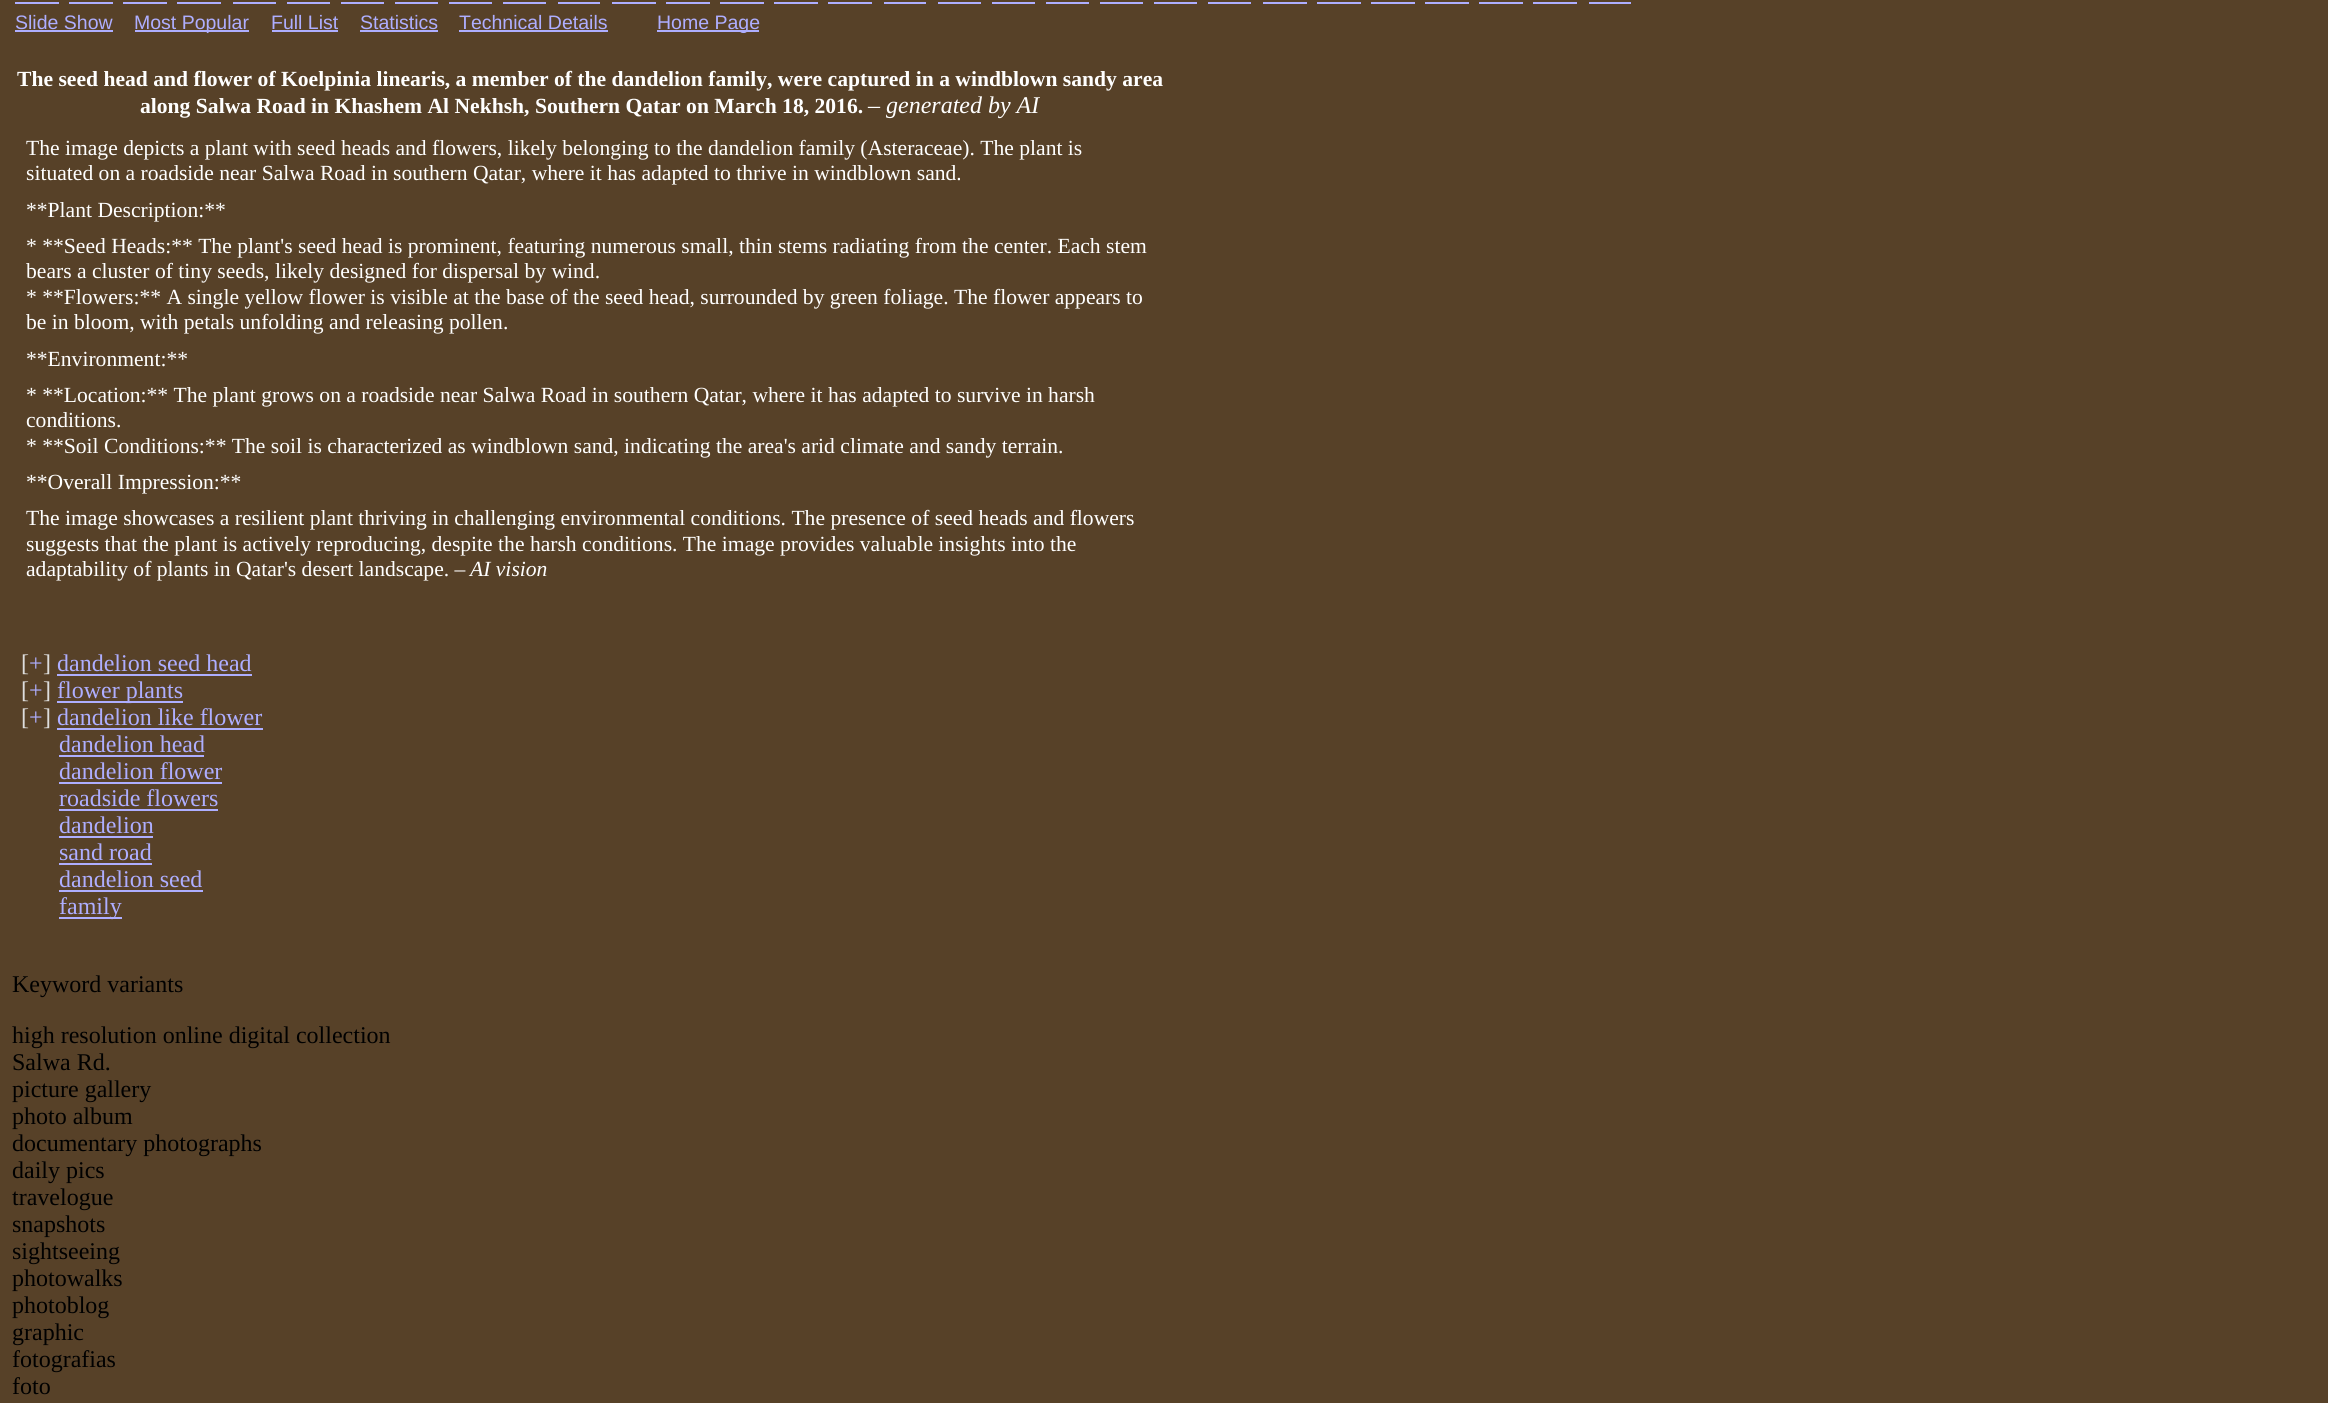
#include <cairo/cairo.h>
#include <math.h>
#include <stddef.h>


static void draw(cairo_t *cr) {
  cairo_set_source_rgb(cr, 87 / 255.0, 65 / 255.0, 40 / 255.0);
  cairo_paint(cr);
  cairo_set_source_rgb(cr, 174 / 255.0, 174 / 255.0, 1);
  cairo_rectangle(cr, 15, 2, 44, 2);
  cairo_fill(cr);
  cairo_rectangle(cr, 69, 2, 44, 2);
  cairo_fill(cr);
  cairo_rectangle(cr, 123, 2, 44, 2);
  cairo_fill(cr);
  cairo_rectangle(cr, 177, 2, 44, 2);
  cairo_fill(cr);
  cairo_rectangle(cr, 233, 2, 43, 2);
  cairo_fill(cr);
  cairo_rectangle(cr, 287, 2, 43, 2);
  cairo_fill(cr);
  cairo_rectangle(cr, 341, 2, 43, 2);
  cairo_fill(cr);
  cairo_rectangle(cr, 395, 2, 43, 2);
  cairo_fill(cr);
  cairo_rectangle(cr, 449, 2, 43, 2);
  cairo_fill(cr);
  cairo_rectangle(cr, 503, 2, 43, 2);
  cairo_fill(cr);
  cairo_rectangle(cr, 558, 2, 42, 2);
  cairo_fill(cr);
  cairo_rectangle(cr, 612, 2, 44, 2);
  cairo_fill(cr);
  cairo_rectangle(cr, 666, 2, 44, 2);
  cairo_fill(cr);
  cairo_rectangle(cr, 720, 2, 44, 2);
  cairo_fill(cr);
  cairo_rectangle(cr, 774, 2, 44, 2);
  cairo_fill(cr);
  cairo_rectangle(cr, 828, 2, 44, 2);
  cairo_fill(cr);
  cairo_rectangle(cr, 884, 2, 42, 2);
  cairo_fill(cr);
  cairo_rectangle(cr, 938, 2, 43, 2);
  cairo_fill(cr);
  cairo_rectangle(cr, 992, 2, 43, 2);
  cairo_fill(cr);
  cairo_rectangle(cr, 1046, 2, 43, 2);
  cairo_fill(cr);
  cairo_rectangle(cr, 1100, 2, 43, 2);
  cairo_fill(cr);
  cairo_rectangle(cr, 1154, 2, 43, 2);
  cairo_fill(cr);
  cairo_rectangle(cr, 1208, 2, 43, 2);
  cairo_fill(cr);
  cairo_rectangle(cr, 1263, 2, 44, 2);
  cairo_fill(cr);
  cairo_rectangle(cr, 1317, 2, 44, 2);
  cairo_fill(cr);
  cairo_rectangle(cr, 1371, 2, 44, 2);
  cairo_fill(cr);
  cairo_rectangle(cr, 1425, 2, 44, 2);
  cairo_fill(cr);
  cairo_rectangle(cr, 1479, 2, 44, 2);
  cairo_fill(cr);
  cairo_rectangle(cr, 1533, 2, 44, 2);
  cairo_fill(cr);
  cairo_rectangle(cr, 1589, 2, 42, 2);
  cairo_fill(cr);
  cairo_rectangle(cr, 15, 30, 98, 2);
  cairo_fill(cr);
  cairo_rectangle(cr, 135, 30, 114, 2);
  cairo_fill(cr);
  cairo_rectangle(cr, 272, 30, 66, 2);
  cairo_fill(cr);
  cairo_rectangle(cr, 360, 30, 78, 2);
  cairo_fill(cr);
  cairo_rectangle(cr, 459, 30, 149, 2);
  cairo_fill(cr);
  cairo_rectangle(cr, 657, 30, 102, 2);
  cairo_fill(cr);
  cairo_rectangle(cr, 57, 674, 195, 2);
  cairo_fill(cr);
  cairo_rectangle(cr, 57, 701, 126, 2);
  cairo_fill(cr);
  cairo_rectangle(cr, 57, 728, 206, 2);
  cairo_fill(cr);
  cairo_rectangle(cr, 59, 755, 145, 2);
  cairo_fill(cr);
  cairo_rectangle(cr, 59, 782, 163, 2);
  cairo_fill(cr);
  cairo_rectangle(cr, 59, 809, 159, 2);
  cairo_fill(cr);
  cairo_rectangle(cr, 59, 836, 94, 2);
  cairo_fill(cr);
  cairo_rectangle(cr, 59, 863, 93, 2);
  cairo_fill(cr);
  cairo_rectangle(cr, 59, 890, 144, 2);
  cairo_fill(cr);
  cairo_rectangle(cr, 59, 917, 63, 2);
  cairo_fill(cr);
  cairo_select_font_face(cr, "Liberation Sans", CAIRO_FONT_SLANT_NORMAL, CAIRO_FONT_WEIGHT_NORMAL);
  cairo_set_font_size(cr, 19.5);
  cairo_move_to(cr, 15, 29);
  cairo_show_text(cr, "Slide Show");
  cairo_move_to(cr, 134, 29);
  cairo_show_text(cr, "Most Popular");
  cairo_move_to(cr, 271, 29);
  cairo_show_text(cr, "Full List");
  cairo_move_to(cr, 360, 29);
  cairo_show_text(cr, "Statistics");
  cairo_move_to(cr, 459, 29);
  cairo_show_text(cr, "Technical Details");
  cairo_move_to(cr, 657, 29);
  cairo_show_text(cr, "Home Page");
  cairo_select_font_face(cr, "Liberation Serif", CAIRO_FONT_SLANT_NORMAL, CAIRO_FONT_WEIGHT_BOLD);
  cairo_set_font_size(cr, 21.6);
  cairo_set_source_rgb(cr, 1, 1, 1);
  cairo_move_to(cr, 17, 86);
  cairo_show_text(cr, "The seed head and flower of Koelpinia linearis, a member of the dandelion family, were captured in a windblown sandy area");
  cairo_move_to(cr, 140, 113);
  cairo_show_text(cr, "along Salwa Road in Khashem Al Nekhsh, Southern Qatar on March 18, 2016.");
  cairo_select_font_face(cr, "Liberation Serif", CAIRO_FONT_SLANT_NORMAL, CAIRO_FONT_WEIGHT_NORMAL);
  cairo_set_font_size(cr, 24);
  cairo_move_to(cr, 868, 113);
  cairo_show_text(cr, "–");
  cairo_select_font_face(cr, "Liberation Serif", CAIRO_FONT_SLANT_ITALIC, CAIRO_FONT_WEIGHT_NORMAL);
  cairo_move_to(cr, 886, 113);
  cairo_show_text(cr, "generated by AI");
  cairo_select_font_face(cr, "Liberation Serif", CAIRO_FONT_SLANT_NORMAL, CAIRO_FONT_WEIGHT_NORMAL);
  cairo_set_font_size(cr, 21.6);
  cairo_move_to(cr, 26, 155);
  cairo_show_text(cr, "The image depicts a plant with seed heads and flowers, likely belonging to the dandelion family (Asteraceae). The plant is");
  cairo_move_to(cr, 26, 180);
  cairo_show_text(cr, "situated on a roadside near Salwa Road in southern Qatar, where it has adapted to thrive in windblown sand.");
  cairo_move_to(cr, 26, 217);
  cairo_show_text(cr, "**Plant Description:**");
  cairo_move_to(cr, 26, 253);
  cairo_show_text(cr, "* **Seed Heads:** The plant's seed head is prominent, featuring numerous small, thin stems radiating from the center. Each stem");
  cairo_move_to(cr, 26, 278);
  cairo_show_text(cr, "bears a cluster of tiny seeds, likely designed for dispersal by wind.");
  cairo_move_to(cr, 26, 304);
  cairo_show_text(cr, "* **Flowers:** A single yellow flower is visible at the base of the seed head, surrounded by green foliage. The flower appears to");
  cairo_move_to(cr, 26, 329);
  cairo_show_text(cr, "be in bloom, with petals unfolding and releasing pollen.");
  cairo_move_to(cr, 26, 366);
  cairo_show_text(cr, "**Environment:**");
  cairo_move_to(cr, 26, 402);
  cairo_show_text(cr, "* **Location:** The plant grows on a roadside near Salwa Road in southern Qatar, where it has adapted to survive in harsh");
  cairo_move_to(cr, 26, 427);
  cairo_show_text(cr, "conditions.");
  cairo_move_to(cr, 26, 453);
  cairo_show_text(cr, "* **Soil Conditions:** The soil is characterized as windblown sand, indicating the area's arid climate and sandy terrain.");
  cairo_move_to(cr, 26, 489);
  cairo_show_text(cr, "**Overall Impression:**");
  cairo_move_to(cr, 26, 525);
  cairo_show_text(cr, "The image showcases a resilient plant thriving in challenging environmental conditions. The presence of seed heads and flowers");
  cairo_move_to(cr, 26, 551);
  cairo_show_text(cr, "suggests that the plant is actively reproducing, despite the harsh conditions. The image provides valuable insights into the");
  cairo_move_to(cr, 26, 576);
  cairo_show_text(cr, "adaptability of plants in Qatar's desert landscape. –");
  cairo_select_font_face(cr, "Liberation Serif", CAIRO_FONT_SLANT_ITALIC, CAIRO_FONT_WEIGHT_NORMAL);
  cairo_move_to(cr, 470, 576);
  cairo_show_text(cr, "AI vision");
  cairo_select_font_face(cr, "Liberation Serif", CAIRO_FONT_SLANT_NORMAL, CAIRO_FONT_WEIGHT_NORMAL);
  cairo_set_font_size(cr, 24);
  cairo_set_source_rgb(cr, 221 / 255.0, 221 / 255.0, 221 / 255.0);
  cairo_move_to(cr, 21, 671);
  cairo_show_text(cr, "[");
  cairo_set_source_rgb(cr, 174 / 255.0, 174 / 255.0, 1);
  cairo_move_to(cr, 29, 671);
  cairo_show_text(cr, "+");
  cairo_set_source_rgb(cr, 221 / 255.0, 221 / 255.0, 221 / 255.0);
  cairo_move_to(cr, 43, 671);
  cairo_show_text(cr, "]");
  cairo_set_source_rgb(cr, 174 / 255.0, 174 / 255.0, 1);
  cairo_move_to(cr, 57, 671);
  cairo_show_text(cr, "dandelion seed head");
  cairo_set_source_rgb(cr, 221 / 255.0, 221 / 255.0, 221 / 255.0);
  cairo_move_to(cr, 21, 698);
  cairo_show_text(cr, "[");
  cairo_set_source_rgb(cr, 174 / 255.0, 174 / 255.0, 1);
  cairo_move_to(cr, 29, 698);
  cairo_show_text(cr, "+");
  cairo_set_source_rgb(cr, 221 / 255.0, 221 / 255.0, 221 / 255.0);
  cairo_move_to(cr, 43, 698);
  cairo_show_text(cr, "]");
  cairo_set_source_rgb(cr, 174 / 255.0, 174 / 255.0, 1);
  cairo_move_to(cr, 57, 698);
  cairo_show_text(cr, "flower plants");
  cairo_set_source_rgb(cr, 221 / 255.0, 221 / 255.0, 221 / 255.0);
  cairo_move_to(cr, 21, 725);
  cairo_show_text(cr, "[");
  cairo_set_source_rgb(cr, 174 / 255.0, 174 / 255.0, 1);
  cairo_move_to(cr, 29, 725);
  cairo_show_text(cr, "+");
  cairo_set_source_rgb(cr, 221 / 255.0, 221 / 255.0, 221 / 255.0);
  cairo_move_to(cr, 43, 725);
  cairo_show_text(cr, "]");
  cairo_set_source_rgb(cr, 174 / 255.0, 174 / 255.0, 1);
  cairo_move_to(cr, 57, 725);
  cairo_show_text(cr, "dandelion like flower");
  cairo_move_to(cr, 59, 752);
  cairo_show_text(cr, "dandelion head");
  cairo_move_to(cr, 59, 779);
  cairo_show_text(cr, "dandelion flower");
  cairo_move_to(cr, 59, 806);
  cairo_show_text(cr, "roadside flowers");
  cairo_move_to(cr, 59, 833);
  cairo_show_text(cr, "dandelion");
  cairo_move_to(cr, 59, 860);
  cairo_show_text(cr, "sand road");
  cairo_move_to(cr, 59, 887);
  cairo_show_text(cr, "dandelion seed");
  cairo_move_to(cr, 59, 914);
  cairo_show_text(cr, "family");
  cairo_set_source_rgb(cr, 0, 0, 0);
  cairo_move_to(cr, 12, 992);
  cairo_show_text(cr, "Keyword variants");
  cairo_move_to(cr, 12, 1043);
  cairo_show_text(cr, "high resolution online digital collection");
  cairo_move_to(cr, 12, 1070);
  cairo_show_text(cr, "Salwa Rd.");
  cairo_move_to(cr, 12, 1097);
  cairo_show_text(cr, "picture gallery");
  cairo_move_to(cr, 12, 1124);
  cairo_show_text(cr, "photo album");
  cairo_move_to(cr, 12, 1151);
  cairo_show_text(cr, "documentary photographs");
  cairo_move_to(cr, 12, 1178);
  cairo_show_text(cr, "daily pics");
  cairo_move_to(cr, 12, 1205);
  cairo_show_text(cr, "travelogue");
  cairo_move_to(cr, 12, 1232);
  cairo_show_text(cr, "snapshots");
  cairo_move_to(cr, 12, 1259);
  cairo_show_text(cr, "sightseeing");
  cairo_move_to(cr, 12, 1286);
  cairo_show_text(cr, "photowalks");
  cairo_move_to(cr, 12, 1313);
  cairo_show_text(cr, "photoblog");
  cairo_move_to(cr, 12, 1340);
  cairo_show_text(cr, "graphic");
  cairo_move_to(cr, 12, 1367);
  cairo_show_text(cr, "fotografias");
  cairo_move_to(cr, 12, 1394);
  cairo_show_text(cr, "foto");
}

int main(void) {
  cairo_surface_t *surface = cairo_image_surface_create(CAIRO_FORMAT_RGB24, 2328, 1403);
  cairo_t *cr = cairo_create(surface);
  cairo_font_options_t *options = cairo_font_options_create();
  cairo_font_options_set_hint_metrics(options, CAIRO_HINT_METRICS_OFF);
  cairo_font_options_set_hint_style(options, CAIRO_HINT_STYLE_NONE);
  cairo_set_font_options(cr, options);
  cairo_set_miter_limit(cr, 4);
  draw(cr);
  cairo_surface_write_to_png(surface, "out.png");
  cairo_font_options_destroy(options);
  cairo_destroy(cr);
  cairo_surface_destroy(surface);
  return 0;
}
